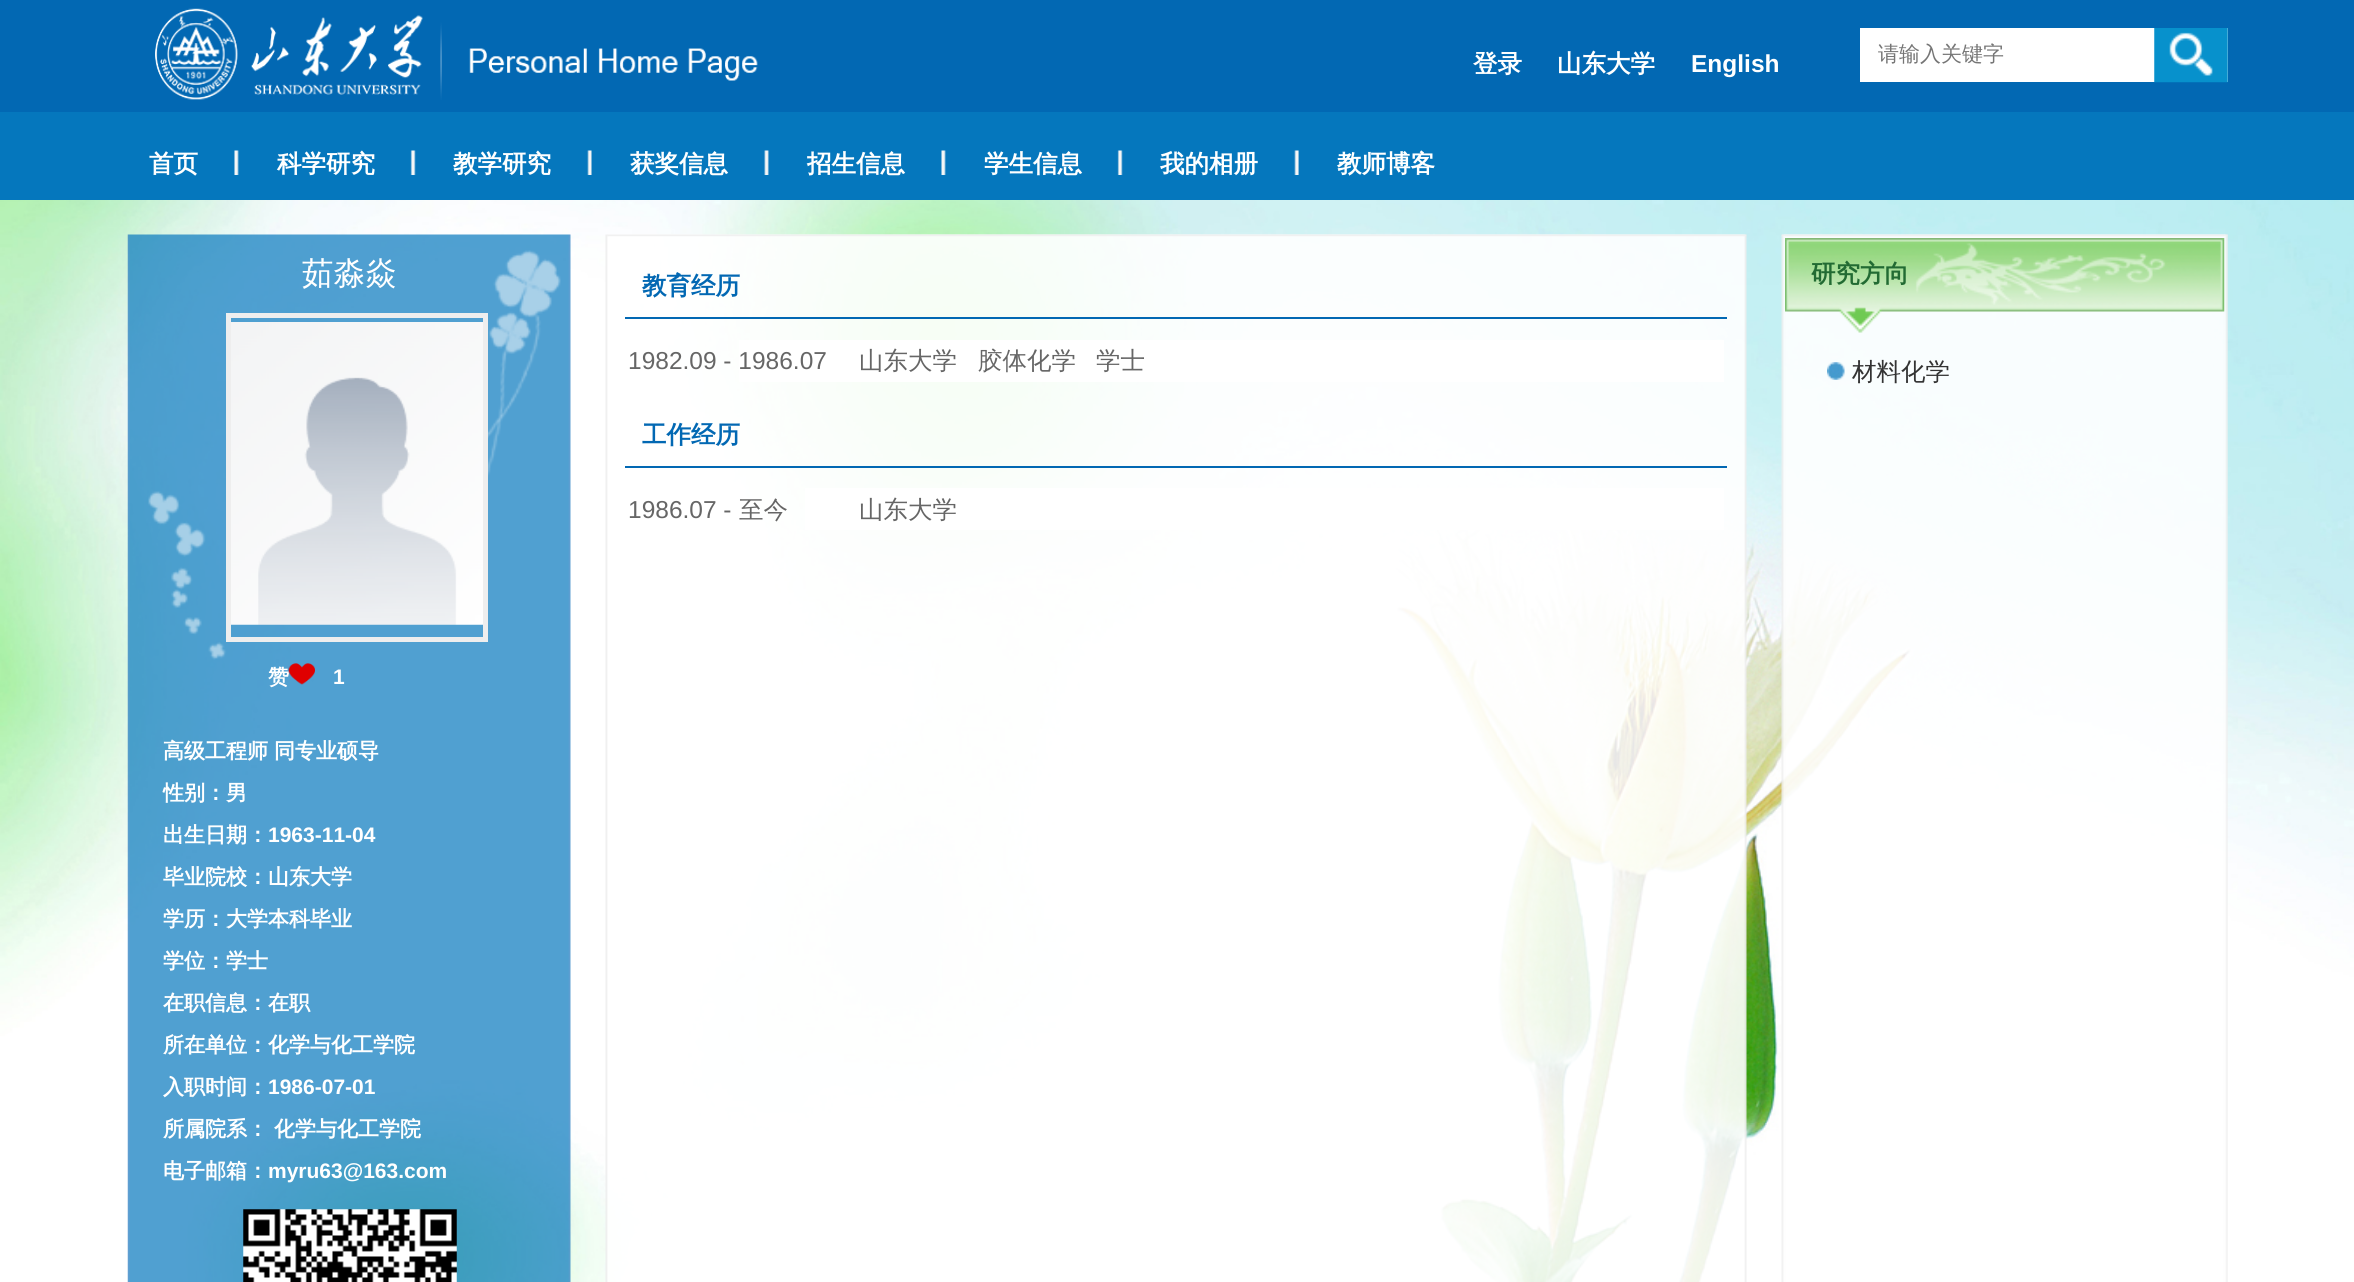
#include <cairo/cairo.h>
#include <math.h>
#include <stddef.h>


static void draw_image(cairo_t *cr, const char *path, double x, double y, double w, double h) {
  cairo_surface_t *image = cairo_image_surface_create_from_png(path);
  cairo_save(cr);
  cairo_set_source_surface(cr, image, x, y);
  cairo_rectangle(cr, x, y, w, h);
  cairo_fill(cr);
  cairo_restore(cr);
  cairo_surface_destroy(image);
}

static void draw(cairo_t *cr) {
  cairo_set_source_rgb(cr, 1, 1, 1);
  cairo_paint(cr);
  draw_image(cr, "images/1.png", 0, 200, 2354, 1082);
  cairo_set_source_rgb(cr, 2 / 255.0, 104 / 255.0, 179 / 255.0);
  cairo_rectangle(cr, 0, 0, 2354, 112);
  cairo_fill(cr);
  draw_image(cr, "images/2.png", 155, 8, 603, 92);
  cairo_set_source_rgb(cr, 1, 1, 1);
  cairo_rectangle(cr, 1860, 28, 368, 54);
  cairo_fill(cr);
  draw_image(cr, "images/3.png", 2154, 28, 74, 55);
  cairo_set_source_rgb(cr, 5 / 255.0, 119 / 255.0, 189 / 255.0);
  cairo_rectangle(cr, 0, 112, 2354, 88);
  cairo_fill(cr);
  draw_image(cr, "images/4.png", 234, 150, 5, 25);
  draw_image(cr, "images/5.png", 410, 150, 6, 25);
  draw_image(cr, "images/6.png", 587, 150, 5, 25);
  draw_image(cr, "images/7.png", 764, 150, 5, 25);
  draw_image(cr, "images/4.png", 941, 150, 5, 25);
  draw_image(cr, "images/5.png", 1117, 150, 6, 25);
  draw_image(cr, "images/8.png", 1294, 150, 5, 25);
  draw_image(cr, "images/9.png", 127, 234, 2101, 1048);
  draw_image(cr, "images/10.png", 607, 234, 1621, 3);
  draw_image(cr, "images/11.png", 148, 250, 413, 410);
  cairo_rectangle(cr, 228.5, 315.5, 257, 324);
  cairo_set_source_rgb(cr, 238 / 255.0, 238 / 255.0, 238 / 255.0);
  cairo_set_line_width(cr, 5);
  cairo_stroke(cr);
  draw_image(cr, "images/12.png", 231, 322, 252, 303);
  draw_image(cr, "images/14.png", 243, 1209, 214, 73);
  cairo_set_source_rgb(cr, 2 / 255.0, 104 / 255.0, 179 / 255.0);
  cairo_rectangle(cr, 625, 317, 1102, 2);
  cairo_fill(cr);
  cairo_set_source_rgb(cr, 1, 1, 1);
  cairo_rectangle(cr, 739, 340, 985, 42);
  cairo_fill(cr);
  cairo_set_source_rgb(cr, 2 / 255.0, 104 / 255.0, 179 / 255.0);
  cairo_rectangle(cr, 625, 466, 1102, 2);
  cairo_fill(cr);
  cairo_set_source_rgb(cr, 1, 1, 1);
  cairo_rectangle(cr, 805, 488, 919, 42);
  cairo_fill(cr);
  draw_image(cr, "images/15.png", 1785, 238, 440, 95);
  draw_image(cr, "images/16.png", 1827, 362, 18, 18);
  cairo_select_font_face(cr, "WenQuanYi Zen Hei", CAIRO_FONT_SLANT_NORMAL, CAIRO_FONT_WEIGHT_BOLD);
  cairo_set_font_size(cr, 24.5);
  cairo_move_to(cr, 1473, 72);
  cairo_show_text(cr, "登录");
  cairo_move_to(cr, 1557, 72);
  cairo_show_text(cr, "山东大学");
  cairo_select_font_face(cr, "Liberation Sans", CAIRO_FONT_SLANT_NORMAL, CAIRO_FONT_WEIGHT_BOLD);
  cairo_move_to(cr, 1691, 72);
  cairo_show_text(cr, "English");
  cairo_select_font_face(cr, "WenQuanYi Zen Hei Medium", CAIRO_FONT_SLANT_NORMAL, CAIRO_FONT_WEIGHT_NORMAL);
  cairo_set_font_size(cr, 21);
  cairo_set_source_rgb(cr, 117 / 255.0, 117 / 255.0, 117 / 255.0);
  cairo_move_to(cr, 1878, 61);
  cairo_show_text(cr, "请输入关键字");
  cairo_select_font_face(cr, "WenQuanYi Zen Hei", CAIRO_FONT_SLANT_NORMAL, CAIRO_FONT_WEIGHT_BOLD);
  cairo_set_font_size(cr, 24.5);
  cairo_set_source_rgb(cr, 1, 1, 1);
  cairo_move_to(cr, 149, 172);
  cairo_show_text(cr, "首页");
  cairo_move_to(cr, 277, 172);
  cairo_show_text(cr, "科学研究");
  cairo_move_to(cr, 453, 172);
  cairo_show_text(cr, "教学研究");
  cairo_move_to(cr, 630, 172);
  cairo_show_text(cr, "获奖信息");
  cairo_move_to(cr, 807, 172);
  cairo_show_text(cr, "招生信息");
  cairo_move_to(cr, 984, 172);
  cairo_show_text(cr, "学生信息");
  cairo_move_to(cr, 1160, 172);
  cairo_show_text(cr, "我的相册");
  cairo_move_to(cr, 1337, 172);
  cairo_show_text(cr, "教师博客");
  cairo_select_font_face(cr, "WenQuanYi Zen Hei Medium", CAIRO_FONT_SLANT_NORMAL, CAIRO_FONT_WEIGHT_NORMAL);
  cairo_set_font_size(cr, 31.5);
  cairo_move_to(cr, 302, 284);
  cairo_show_text(cr, "茹淼焱");
  cairo_select_font_face(cr, "WenQuanYi Zen Hei", CAIRO_FONT_SLANT_NORMAL, CAIRO_FONT_WEIGHT_BOLD);
  cairo_set_font_size(cr, 21);
  cairo_move_to(cr, 268, 684);
  cairo_show_text(cr, "赞");
  draw_image(cr, "images/13.png", 288, 663, 27, 22);
  cairo_select_font_face(cr, "Liberation Sans", CAIRO_FONT_SLANT_NORMAL, CAIRO_FONT_WEIGHT_BOLD);
  cairo_move_to(cr, 333, 684);
  cairo_show_text(cr, "1");
  cairo_select_font_face(cr, "WenQuanYi Zen Hei", CAIRO_FONT_SLANT_NORMAL, CAIRO_FONT_WEIGHT_BOLD);
  cairo_move_to(cr, 163, 758);
  cairo_show_text(cr, "高级工程师");
  cairo_move_to(cr, 274, 758);
  cairo_show_text(cr, "同专业硕导");
  cairo_move_to(cr, 163, 800);
  cairo_show_text(cr, "性别：男");
  cairo_move_to(cr, 163, 842);
  cairo_show_text(cr, "出生日期：");
  cairo_select_font_face(cr, "Liberation Sans", CAIRO_FONT_SLANT_NORMAL, CAIRO_FONT_WEIGHT_BOLD);
  cairo_move_to(cr, 268, 842);
  cairo_show_text(cr, "1963-11-04");
  cairo_select_font_face(cr, "WenQuanYi Zen Hei", CAIRO_FONT_SLANT_NORMAL, CAIRO_FONT_WEIGHT_BOLD);
  cairo_move_to(cr, 163, 884);
  cairo_show_text(cr, "毕业院校：山东大学");
  cairo_move_to(cr, 163, 926);
  cairo_show_text(cr, "学历：大学本科毕业");
  cairo_move_to(cr, 163, 968);
  cairo_show_text(cr, "学位：学士");
  cairo_move_to(cr, 163, 1010);
  cairo_show_text(cr, "在职信息：在职");
  cairo_move_to(cr, 163, 1052);
  cairo_show_text(cr, "所在单位：化学与化工学院");
  cairo_move_to(cr, 163, 1094);
  cairo_show_text(cr, "入职时间：");
  cairo_select_font_face(cr, "Liberation Sans", CAIRO_FONT_SLANT_NORMAL, CAIRO_FONT_WEIGHT_BOLD);
  cairo_move_to(cr, 268, 1094);
  cairo_show_text(cr, "1986-07-01");
  cairo_select_font_face(cr, "WenQuanYi Zen Hei", CAIRO_FONT_SLANT_NORMAL, CAIRO_FONT_WEIGHT_BOLD);
  cairo_move_to(cr, 163, 1136);
  cairo_show_text(cr, "所属院系：");
  cairo_move_to(cr, 274, 1136);
  cairo_show_text(cr, "化学与化工学院");
  cairo_move_to(cr, 163, 1178);
  cairo_show_text(cr, "电子邮箱：");
  cairo_select_font_face(cr, "Liberation Sans", CAIRO_FONT_SLANT_NORMAL, CAIRO_FONT_WEIGHT_BOLD);
  cairo_move_to(cr, 268, 1178);
  cairo_show_text(cr, "myru63@163.com");
  cairo_select_font_face(cr, "WenQuanYi Zen Hei", CAIRO_FONT_SLANT_NORMAL, CAIRO_FONT_WEIGHT_BOLD);
  cairo_set_font_size(cr, 24.5);
  cairo_set_source_rgb(cr, 2 / 255.0, 104 / 255.0, 179 / 255.0);
  cairo_move_to(cr, 642, 294);
  cairo_show_text(cr, "教育经历");
  cairo_select_font_face(cr, "Liberation Sans", CAIRO_FONT_SLANT_NORMAL, CAIRO_FONT_WEIGHT_NORMAL);
  cairo_set_source_rgb(cr, 102 / 255.0, 102 / 255.0, 102 / 255.0);
  cairo_move_to(cr, 628, 369);
  cairo_show_text(cr, "1982.09 - 1986.07");
  cairo_select_font_face(cr, "WenQuanYi Zen Hei Medium", CAIRO_FONT_SLANT_NORMAL, CAIRO_FONT_WEIGHT_NORMAL);
  cairo_move_to(cr, 859, 369);
  cairo_show_text(cr, "山东大学");
  cairo_move_to(cr, 978, 369);
  cairo_show_text(cr, "胶体化学");
  cairo_move_to(cr, 1096, 369);
  cairo_show_text(cr, "学士");
  cairo_select_font_face(cr, "WenQuanYi Zen Hei", CAIRO_FONT_SLANT_NORMAL, CAIRO_FONT_WEIGHT_BOLD);
  cairo_set_source_rgb(cr, 2 / 255.0, 104 / 255.0, 179 / 255.0);
  cairo_move_to(cr, 642, 443);
  cairo_show_text(cr, "工作经历");
  cairo_select_font_face(cr, "Liberation Sans", CAIRO_FONT_SLANT_NORMAL, CAIRO_FONT_WEIGHT_NORMAL);
  cairo_set_source_rgb(cr, 102 / 255.0, 102 / 255.0, 102 / 255.0);
  cairo_move_to(cr, 628, 518);
  cairo_show_text(cr, "1986.07 -");
  cairo_select_font_face(cr, "WenQuanYi Zen Hei Medium", CAIRO_FONT_SLANT_NORMAL, CAIRO_FONT_WEIGHT_NORMAL);
  cairo_move_to(cr, 739, 518);
  cairo_show_text(cr, "至今");
  cairo_move_to(cr, 859, 518);
  cairo_show_text(cr, "山东大学");
  cairo_select_font_face(cr, "WenQuanYi Zen Hei", CAIRO_FONT_SLANT_NORMAL, CAIRO_FONT_WEIGHT_BOLD);
  cairo_set_source_rgb(cr, 34 / 255.0, 107 / 255.0, 51 / 255.0);
  cairo_move_to(cr, 1811, 282);
  cairo_show_text(cr, "研究方向");
  cairo_select_font_face(cr, "WenQuanYi Zen Hei Medium", CAIRO_FONT_SLANT_NORMAL, CAIRO_FONT_WEIGHT_NORMAL);
  cairo_set_source_rgb(cr, 51 / 255.0, 51 / 255.0, 51 / 255.0);
  cairo_move_to(cr, 1852, 380);
  cairo_show_text(cr, "材料化学");
}

int main(void) {
  cairo_surface_t *surface = cairo_image_surface_create(CAIRO_FORMAT_RGB24, 2354, 1282);
  cairo_t *cr = cairo_create(surface);
  cairo_font_options_t *options = cairo_font_options_create();
  cairo_font_options_set_hint_metrics(options, CAIRO_HINT_METRICS_OFF);
  cairo_font_options_set_hint_style(options, CAIRO_HINT_STYLE_NONE);
  cairo_set_font_options(cr, options);
  cairo_set_miter_limit(cr, 4);
  draw(cr);
  cairo_surface_write_to_png(surface, "out.png");
  cairo_font_options_destroy(options);
  cairo_destroy(cr);
  cairo_surface_destroy(surface);
  return 0;
}
